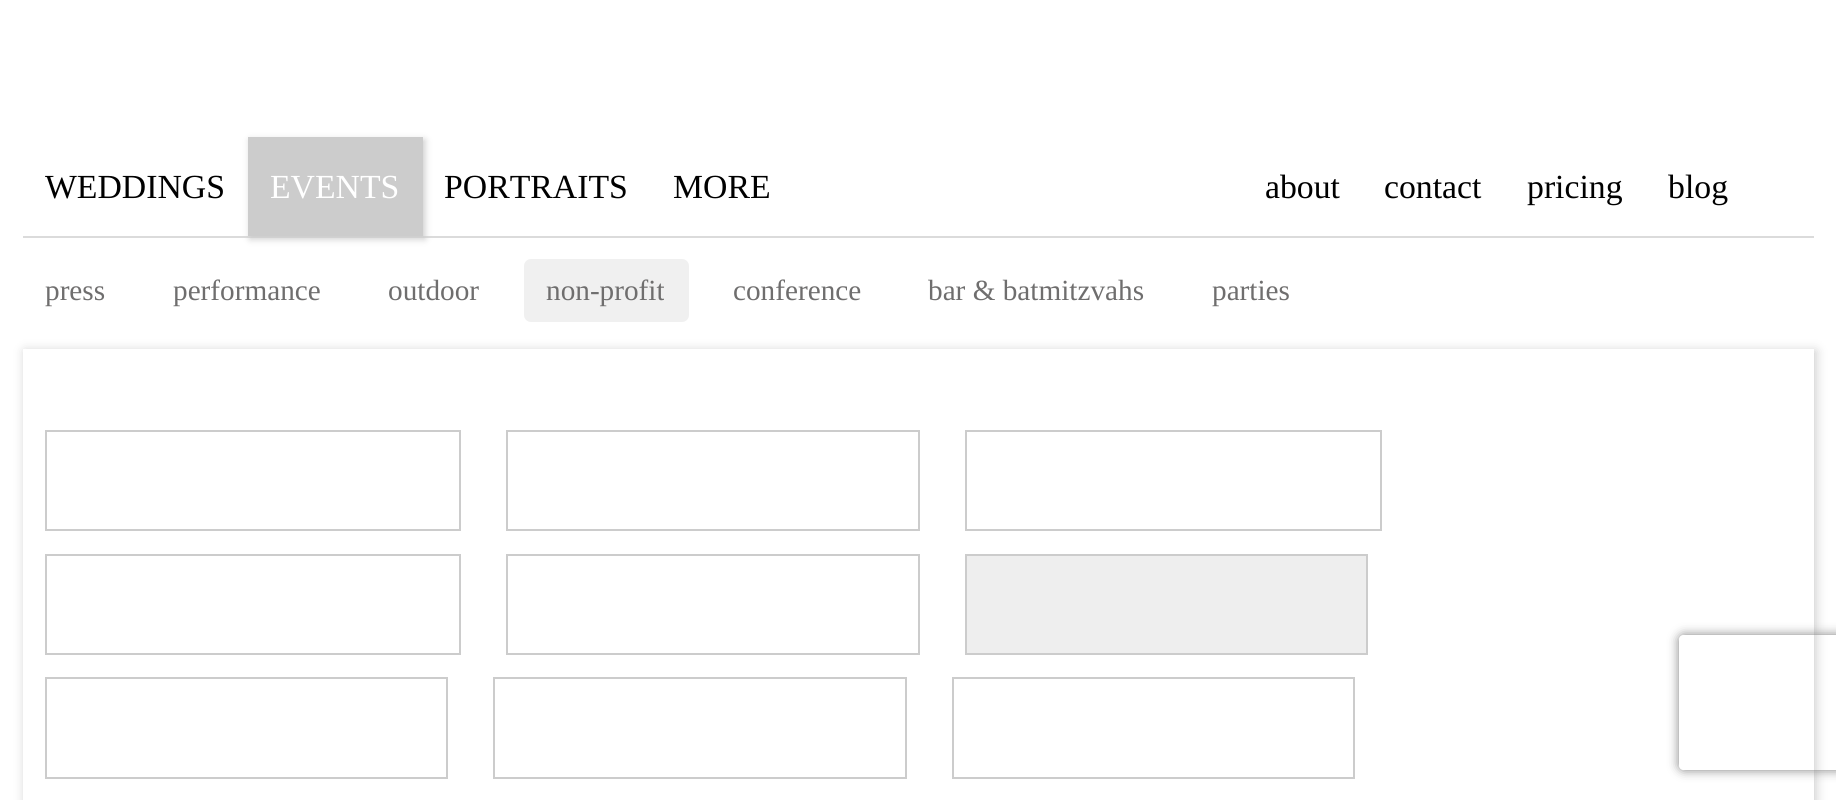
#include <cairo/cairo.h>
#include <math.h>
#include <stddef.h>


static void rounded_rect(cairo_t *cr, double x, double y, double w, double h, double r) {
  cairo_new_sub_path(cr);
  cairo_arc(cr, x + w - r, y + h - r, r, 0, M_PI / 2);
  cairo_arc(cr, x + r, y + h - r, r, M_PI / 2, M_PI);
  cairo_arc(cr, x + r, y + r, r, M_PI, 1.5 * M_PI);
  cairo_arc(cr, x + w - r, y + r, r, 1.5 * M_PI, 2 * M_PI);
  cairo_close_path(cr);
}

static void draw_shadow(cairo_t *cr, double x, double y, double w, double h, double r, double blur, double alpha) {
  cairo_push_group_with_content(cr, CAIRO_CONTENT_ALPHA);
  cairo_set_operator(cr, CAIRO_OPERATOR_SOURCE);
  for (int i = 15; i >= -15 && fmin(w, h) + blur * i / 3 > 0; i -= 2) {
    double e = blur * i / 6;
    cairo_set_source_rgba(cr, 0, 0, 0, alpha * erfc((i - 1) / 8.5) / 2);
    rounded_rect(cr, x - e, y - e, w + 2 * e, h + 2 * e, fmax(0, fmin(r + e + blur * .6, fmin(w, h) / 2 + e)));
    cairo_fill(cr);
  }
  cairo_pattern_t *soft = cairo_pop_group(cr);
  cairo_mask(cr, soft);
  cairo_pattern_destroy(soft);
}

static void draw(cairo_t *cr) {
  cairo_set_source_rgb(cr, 1, 1, 1);
  cairo_paint(cr);
  cairo_set_source_rgb(cr, 204 / 255.0, 204 / 255.0, 204 / 255.0);
  draw_shadow(cr, 250, 140, 175, 99, 0, 3.5, 1);
  cairo_set_source_rgb(cr, 204 / 255.0, 204 / 255.0, 204 / 255.0);
  cairo_rectangle(cr, 248, 137, 175, 99);
  cairo_fill(cr);
  cairo_set_source_rgba(cr, 204 / 255.0, 204 / 255.0, 204 / 255.0, 0.7);
  cairo_rectangle(cr, 23, 236, 1791, 2);
  cairo_fill(cr);
  cairo_set_source_rgb(cr, 240 / 255.0, 240 / 255.0, 240 / 255.0);
  rounded_rect(cr, 524, 259, 165, 63, 7);
  cairo_fill(cr);
  cairo_set_source_rgb(cr, 204 / 255.0, 204 / 255.0, 204 / 255.0);
  draw_shadow(cr, 25, 351, 1791, 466, 0, 5.5, 1);
  cairo_set_source_rgb(cr, 1, 1, 1);
  cairo_rectangle(cr, 23, 349, 1791, 451);
  cairo_fill(cr);
  cairo_rectangle(cr, 46, 431, 414, 99);
  cairo_set_source_rgb(cr, 204 / 255.0, 204 / 255.0, 204 / 255.0);
  cairo_stroke(cr);
  cairo_rectangle(cr, 507, 431, 412, 99);
  cairo_stroke(cr);
  cairo_rectangle(cr, 966, 431, 415, 99);
  cairo_stroke(cr);
  cairo_rectangle(cr, 46, 555, 414, 99);
  cairo_stroke(cr);
  cairo_rectangle(cr, 507, 555, 412, 99);
  cairo_stroke(cr);
  cairo_set_source_rgb(cr, 238 / 255.0, 238 / 255.0, 238 / 255.0);
  cairo_rectangle(cr, 966, 555, 401, 99);
  cairo_fill_preserve(cr);
  cairo_set_source_rgb(cr, 204 / 255.0, 204 / 255.0, 204 / 255.0);
  cairo_stroke(cr);
  cairo_rectangle(cr, 46, 678, 401, 100);
  cairo_stroke(cr);
  cairo_rectangle(cr, 494, 678, 412, 100);
  cairo_stroke(cr);
  cairo_rectangle(cr, 953, 678, 401, 100);
  cairo_stroke(cr);
  cairo_save(cr);
  cairo_set_fill_rule(cr, CAIRO_FILL_RULE_EVEN_ODD);
  cairo_new_path(cr);
  cairo_move_to(cr, 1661, 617);
  cairo_line_to(cr, 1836, 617);
  cairo_line_to(cr, 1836, 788);
  cairo_line_to(cr, 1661, 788);
  cairo_close_path(cr);
  cairo_move_to(cr, 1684, 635);
  cairo_line_to(cr, 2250, 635);
  cairo_curve_to(cr, 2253, 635, 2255, 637, 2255, 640);
  cairo_line_to(cr, 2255, 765);
  cairo_curve_to(cr, 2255, 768, 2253, 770, 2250, 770);
  cairo_line_to(cr, 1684, 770);
  cairo_curve_to(cr, 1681, 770, 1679, 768, 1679, 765);
  cairo_line_to(cr, 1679, 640);
  cairo_curve_to(cr, 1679, 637, 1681, 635, 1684, 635);
  cairo_close_path(cr);
  cairo_clip(cr);
  cairo_set_source_rgb(cr, 128 / 255.0, 128 / 255.0, 128 / 255.0);
  draw_shadow(cr, 1679, 635, 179, 135, 5, 5.5, 1);
  cairo_restore(cr);
  cairo_select_font_face(cr, "Liberation Serif", CAIRO_FONT_SLANT_NORMAL, CAIRO_FONT_WEIGHT_NORMAL);
  cairo_set_font_size(cr, 33.75);
  cairo_set_source_rgb(cr, 0, 0, 0);
  cairo_move_to(cr, 45, 198);
  cairo_show_text(cr, "WEDDINGS");
  cairo_set_source_rgb(cr, 1, 1, 1);
  cairo_move_to(cr, 270, 198);
  cairo_show_text(cr, "EVENTS");
  cairo_set_font_size(cr, 29.25);
  cairo_set_source_rgb(cr, 111 / 255.0, 110 / 255.0, 110 / 255.0);
  cairo_move_to(cr, 45, 300);
  cairo_show_text(cr, "press");
  cairo_move_to(cr, 173, 300);
  cairo_show_text(cr, "performance");
  cairo_move_to(cr, 388, 300);
  cairo_show_text(cr, "outdoor");
  cairo_move_to(cr, 546, 300);
  cairo_show_text(cr, "non-profit");
  cairo_move_to(cr, 733, 300);
  cairo_show_text(cr, "conference");
  cairo_move_to(cr, 928, 300);
  cairo_show_text(cr, "bar & batmitzvahs");
  cairo_move_to(cr, 1212, 300);
  cairo_show_text(cr, "parties");
  cairo_set_font_size(cr, 33.75);
  cairo_set_source_rgb(cr, 0, 0, 0);
  cairo_move_to(cr, 444, 198);
  cairo_show_text(cr, "PORTRAITS");
  cairo_move_to(cr, 673, 198);
  cairo_show_text(cr, "MORE");
  cairo_move_to(cr, 1265, 198);
  cairo_show_text(cr, "about");
  cairo_move_to(cr, 1384, 198);
  cairo_show_text(cr, "contact");
  cairo_move_to(cr, 1527, 198);
  cairo_show_text(cr, "pricing");
  cairo_move_to(cr, 1668, 198);
  cairo_show_text(cr, "blog");
}

int main(void) {
  cairo_surface_t *surface = cairo_image_surface_create(CAIRO_FORMAT_RGB24, 1836, 800);
  cairo_t *cr = cairo_create(surface);
  cairo_font_options_t *options = cairo_font_options_create();
  cairo_font_options_set_hint_metrics(options, CAIRO_HINT_METRICS_OFF);
  cairo_font_options_set_hint_style(options, CAIRO_HINT_STYLE_NONE);
  cairo_set_font_options(cr, options);
  cairo_set_miter_limit(cr, 4);
  draw(cr);
  cairo_surface_write_to_png(surface, "out.png");
  cairo_font_options_destroy(options);
  cairo_destroy(cr);
  cairo_surface_destroy(surface);
  return 0;
}
